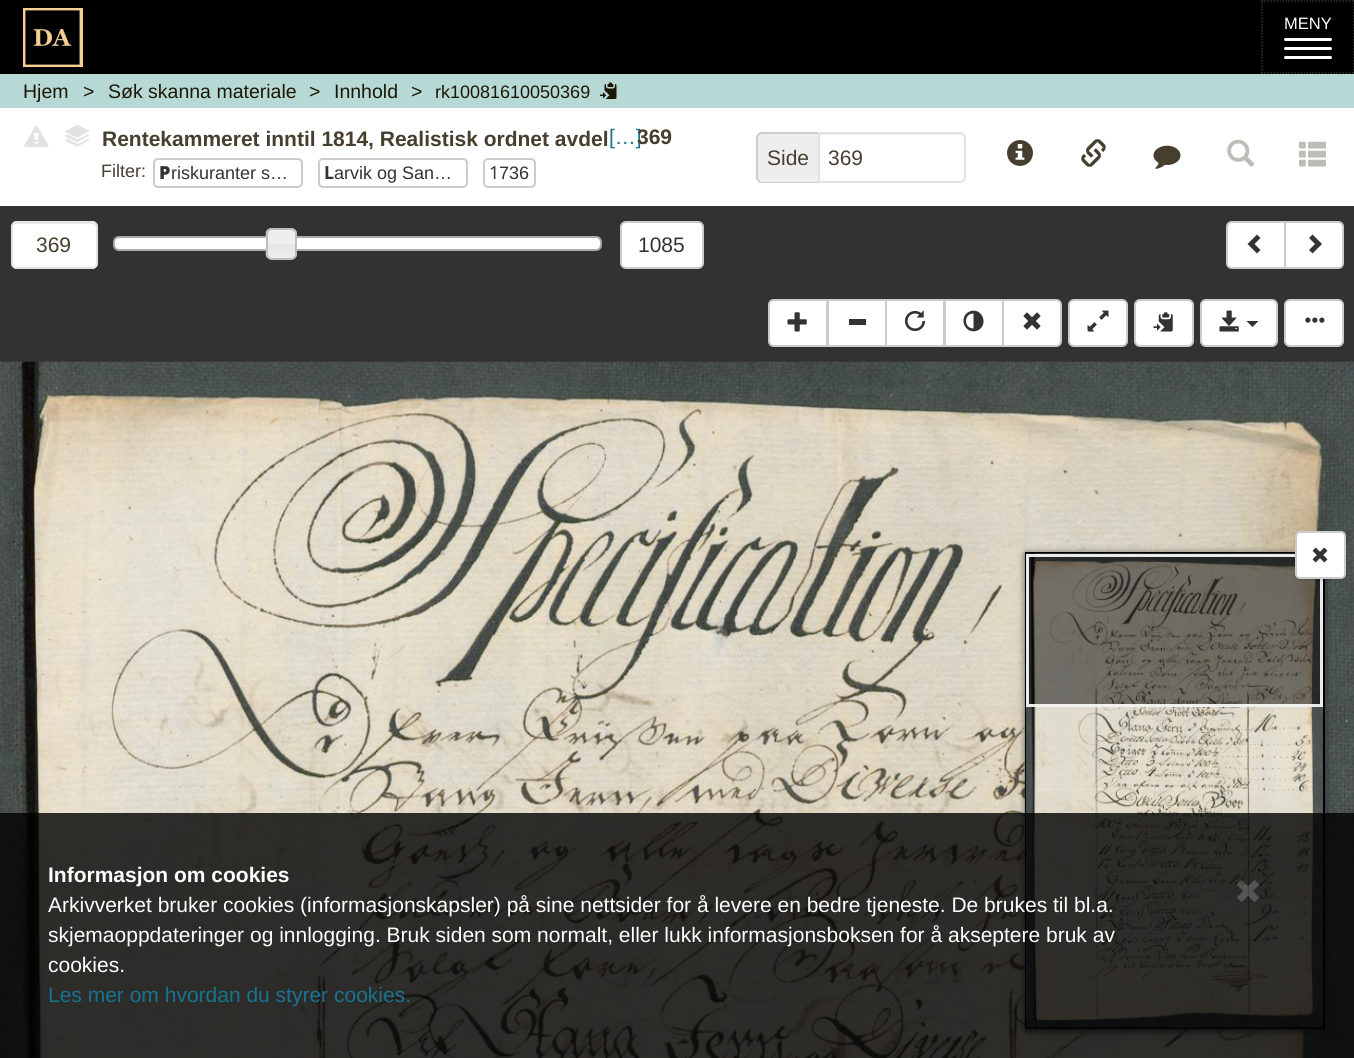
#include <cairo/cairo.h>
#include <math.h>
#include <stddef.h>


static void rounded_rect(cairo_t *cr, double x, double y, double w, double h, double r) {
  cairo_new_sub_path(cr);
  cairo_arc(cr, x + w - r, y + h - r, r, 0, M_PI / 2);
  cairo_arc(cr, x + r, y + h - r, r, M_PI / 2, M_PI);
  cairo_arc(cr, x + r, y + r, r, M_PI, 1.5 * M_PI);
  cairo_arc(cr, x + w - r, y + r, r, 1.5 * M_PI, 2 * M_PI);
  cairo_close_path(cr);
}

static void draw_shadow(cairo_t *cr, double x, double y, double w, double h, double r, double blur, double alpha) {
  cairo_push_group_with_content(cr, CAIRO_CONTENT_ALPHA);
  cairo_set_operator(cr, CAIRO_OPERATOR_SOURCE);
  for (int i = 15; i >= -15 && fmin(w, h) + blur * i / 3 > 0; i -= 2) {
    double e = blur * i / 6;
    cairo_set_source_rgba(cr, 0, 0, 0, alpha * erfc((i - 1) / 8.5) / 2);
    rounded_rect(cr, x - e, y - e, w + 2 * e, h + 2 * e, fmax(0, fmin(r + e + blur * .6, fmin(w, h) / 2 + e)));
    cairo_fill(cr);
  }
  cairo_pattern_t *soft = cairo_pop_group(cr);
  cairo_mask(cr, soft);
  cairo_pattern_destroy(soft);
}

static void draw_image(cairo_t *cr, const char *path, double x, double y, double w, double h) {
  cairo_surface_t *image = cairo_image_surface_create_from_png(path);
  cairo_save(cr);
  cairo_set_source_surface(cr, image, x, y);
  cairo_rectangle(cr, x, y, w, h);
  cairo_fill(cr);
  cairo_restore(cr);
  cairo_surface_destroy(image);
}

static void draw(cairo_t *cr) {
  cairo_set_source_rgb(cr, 182 / 255.0, 217 / 255.0, 214 / 255.0);
  cairo_paint(cr);
  cairo_set_source_rgb(cr, 0, 0, 0);
  cairo_rectangle(cr, 0, 0, 1354, 74);
  cairo_fill(cr);
  draw_image(cr, "images/1.png", 23, 8, 60, 59);
  cairo_new_path(cr);
  cairo_move_to(cr, 1261.5, 1);
  cairo_line_to(cr, 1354.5, 1);
  cairo_set_source_rgb(cr, 51 / 255.0, 51 / 255.0, 51 / 255.0);
  cairo_set_line_width(cr, 1.5);
  cairo_set_dash(cr, (double[]){1.5, 1.5}, 2, 0);
  cairo_stroke(cr);
  cairo_new_path(cr);
  cairo_move_to(cr, 1354, 0);
  cairo_line_to(cr, 1354, 73.5);
  cairo_stroke(cr);
  cairo_new_path(cr);
  cairo_move_to(cr, 1261.5, 73);
  cairo_line_to(cr, 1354.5, 73);
  cairo_stroke(cr);
  cairo_new_path(cr);
  cairo_move_to(cr, 1262, 0);
  cairo_line_to(cr, 1262, 73.5);
  cairo_stroke(cr);
  cairo_set_source_rgb(cr, 1, 1, 1);
  rounded_rect(cr, 1284, 38, 48, 3, 1.5);
  cairo_fill(cr);
  rounded_rect(cr, 1284, 47, 48, 3, 1.5);
  cairo_fill(cr);
  rounded_rect(cr, 1284, 56, 48, 3, 1.5);
  cairo_fill(cr);
  draw_image(cr, "images/2.png", 600, 82, 17, 17);
  cairo_rectangle(cr, 0, 108, 1354, 98);
  cairo_fill(cr);
  draw_image(cr, "images/3.png", 24, 125, 25, 22);
  draw_image(cr, "images/8.png", 65, 138, 25, 9);
  draw_image(cr, "images/7.png", 68, 136, 20, 8);
  draw_image(cr, "images/6.png", 65, 134, 25, 8);
  draw_image(cr, "images/5.png", 67, 131, 21, 9);
  draw_image(cr, "images/4.png", 65, 124, 25, 14);
  cairo_rectangle(cr, 637, 129, 5, 16);
  cairo_fill(cr);
  rounded_rect(cr, 154, 159, 148, 28, 4);
  cairo_set_source_rgb(cr, 204 / 255.0, 204 / 255.0, 204 / 255.0);
  cairo_set_line_width(cr, 2);
  cairo_set_dash(cr, NULL, 0, 0);
  cairo_stroke(cr);
  rounded_rect(cr, 319, 159, 148, 28, 4);
  cairo_stroke(cr);
  rounded_rect(cr, 484, 159, 51, 28, 4);
  cairo_stroke(cr);
  cairo_set_source_rgb(cr, 238 / 255.0, 238 / 255.0, 238 / 255.0);
  cairo_new_path(cr);
  cairo_move_to(cr, 762, 132);
  cairo_line_to(cr, 818, 132);
  cairo_line_to(cr, 818, 183);
  cairo_line_to(cr, 762, 183);
  cairo_curve_to(cr, 758.5, 183, 756, 180.5, 756, 177);
  cairo_line_to(cr, 756, 138);
  cairo_curve_to(cr, 756, 134.5, 758.5, 132, 762, 132);
  cairo_close_path(cr);
  cairo_fill(cr);
  cairo_set_source_rgb(cr, 204 / 255.0, 204 / 255.0, 204 / 255.0);
  cairo_set_fill_rule(cr, CAIRO_FILL_RULE_EVEN_ODD);
  cairo_new_path(cr);
  cairo_move_to(cr, 762, 132);
  cairo_line_to(cr, 818, 132);
  cairo_line_to(cr, 818, 183);
  cairo_line_to(cr, 762, 183);
  cairo_curve_to(cr, 759, 183, 756, 180, 756, 177);
  cairo_line_to(cr, 756, 138);
  cairo_curve_to(cr, 756, 135, 759, 132, 762, 132);
  cairo_close_path(cr);
  cairo_move_to(cr, 762, 134);
  cairo_line_to(cr, 818, 134);
  cairo_line_to(cr, 818, 182);
  cairo_line_to(cr, 762, 182);
  cairo_curve_to(cr, 760, 182, 758, 179, 758, 177);
  cairo_line_to(cr, 758, 138);
  cairo_curve_to(cr, 758, 136, 760, 134, 762, 134);
  cairo_close_path(cr);
  cairo_fill(cr);
  cairo_set_source_rgb(cr, 236 / 255.0, 236 / 255.0, 236 / 255.0);
  cairo_set_fill_rule(cr, CAIRO_FILL_RULE_WINDING);
  cairo_new_path(cr);
  cairo_move_to(cr, 819, 135);
  cairo_line_to(cr, 960, 135);
  cairo_curve_to(cr, 962, 135, 964, 137, 964, 140);
  cairo_line_to(cr, 964, 178);
  cairo_line_to(cr, 963, 181);
  cairo_curve_to(cr, 964, 180, 965, 178, 965, 177);
  cairo_line_to(cr, 965, 139);
  cairo_curve_to(cr, 965, 136, 963, 134, 960, 134);
  cairo_line_to(cr, 819, 134);
  cairo_close_path(cr);
  cairo_fill(cr);
  cairo_new_path(cr);
  cairo_move_to(cr, 819, 133);
  cairo_line_to(cr, 960, 133);
  cairo_curve_to(cr, 963, 133, 965, 135, 965, 138);
  cairo_line_to(cr, 965, 177);
  cairo_curve_to(cr, 965, 180, 963, 182, 960, 182);
  cairo_line_to(cr, 819, 182);
  cairo_close_path(cr);
  cairo_set_source_rgb(cr, 227 / 255.0, 226 / 255.0, 224 / 255.0);
  cairo_stroke(cr);
  draw_image(cr, "images/9.png", 1007, 140, 26, 26);
  draw_image(cr, "images/10.png", 1081, 139, 25, 28);
  draw_image(cr, "images/11.png", 1153, 145, 28, 24);
  draw_image(cr, "images/12.png", 1227, 139, 28, 28);
  draw_image(cr, "images/13.png", 1299, 141, 27, 26);
  cairo_set_source_rgb(cr, 51 / 255.0, 50 / 255.0, 49 / 255.0);
  cairo_rectangle(cr, 0, 206, 1354, 156);
  cairo_fill(cr);
  cairo_set_source_rgb(cr, 1, 1, 1);
  rounded_rect(cr, 11, 221, 87, 48, 6);
  cairo_fill(cr);
  cairo_set_source_rgb(cr, 236 / 255.0, 236 / 255.0, 236 / 255.0);
  cairo_new_path(cr);
  cairo_move_to(cr, 16, 224);
  cairo_line_to(cr, 92, 224);
  cairo_curve_to(cr, 94, 224, 96, 226, 96, 228);
  cairo_curve_to(cr, 96, 219, 84, 222, 79, 222);
  cairo_line_to(cr, 29, 222);
  cairo_curve_to(cr, 24, 222, 12, 219, 12, 228);
  cairo_curve_to(cr, 12, 226, 14, 224, 16, 224);
  cairo_close_path(cr);
  cairo_fill(cr);
  rounded_rect(cr, 12, 222, 85, 46, 5);
  cairo_set_source_rgb(cr, 227 / 255.0, 226 / 255.0, 224 / 255.0);
  cairo_stroke(cr);
  cairo_set_source_rgb(cr, 1, 1, 1);
  rounded_rect(cr, 114, 237, 487, 13, 5);
  cairo_fill_preserve(cr);
  cairo_set_source_rgb(cr, 170 / 255.0, 170 / 255.0, 170 / 255.0);
  cairo_stroke(cr);
  draw_image(cr, "images/14.png", 265, 228, 32, 32);
  rounded_rect(cr, 267, 229, 29, 30, 5);
  cairo_set_source_rgb(cr, 191 / 255.0, 190 / 255.0, 189 / 255.0);
  cairo_stroke(cr);
  cairo_set_source_rgb(cr, 1, 1, 1);
  rounded_rect(cr, 621, 222, 82, 46, 5);
  cairo_fill_preserve(cr);
  cairo_set_source_rgb(cr, 204 / 255.0, 204 / 255.0, 204 / 255.0);
  cairo_stroke(cr);
  cairo_set_source_rgb(cr, 1, 1, 1);
  cairo_new_path(cr);
  cairo_move_to(cr, 1232, 222);
  cairo_line_to(cr, 1285, 222);
  cairo_line_to(cr, 1285, 268);
  cairo_line_to(cr, 1232, 268);
  cairo_curve_to(cr, 1229, 268, 1227, 266, 1227, 263);
  cairo_line_to(cr, 1227, 227);
  cairo_curve_to(cr, 1227, 224, 1229, 222, 1232, 222);
  cairo_close_path(cr);
  cairo_fill_preserve(cr);
  cairo_set_source_rgb(cr, 204 / 255.0, 204 / 255.0, 204 / 255.0);
  cairo_stroke(cr);
  cairo_set_source_rgb(cr, 51 / 255.0, 51 / 255.0, 51 / 255.0);
  cairo_new_path(cr);
  cairo_move_to(cr, 1260.5, 238);
  cairo_line_to(cr, 1254.5, 244);
  cairo_line_to(cr, 1260.5, 250);
  cairo_line_to(cr, 1257, 253.5);
  cairo_line_to(cr, 1247.5, 244);
  cairo_line_to(cr, 1257, 234.5);
  cairo_close_path(cr);
  cairo_fill(cr);
  cairo_set_source_rgb(cr, 1, 1, 1);
  cairo_new_path(cr);
  cairo_move_to(cr, 1285, 222);
  cairo_line_to(cr, 1338, 222);
  cairo_curve_to(cr, 1341, 222, 1343, 224, 1343, 227);
  cairo_line_to(cr, 1343, 263);
  cairo_curve_to(cr, 1343, 266, 1341, 268, 1338, 268);
  cairo_line_to(cr, 1285, 268);
  cairo_close_path(cr);
  cairo_fill_preserve(cr);
  cairo_set_source_rgb(cr, 204 / 255.0, 204 / 255.0, 204 / 255.0);
  cairo_stroke(cr);
  cairo_set_source_rgb(cr, 51 / 255.0, 51 / 255.0, 51 / 255.0);
  cairo_new_path(cr);
  cairo_move_to(cr, 1322, 244);
  cairo_line_to(cr, 1312.5, 253.5);
  cairo_line_to(cr, 1309, 250);
  cairo_line_to(cr, 1315, 244);
  cairo_line_to(cr, 1309, 238);
  cairo_line_to(cr, 1312.5, 234.5);
  cairo_close_path(cr);
  cairo_fill(cr);
  cairo_set_source_rgb(cr, 1, 1, 1);
  cairo_new_path(cr);
  cairo_move_to(cr, 774, 300);
  cairo_line_to(cr, 827, 300);
  cairo_line_to(cr, 827, 346);
  cairo_line_to(cr, 774, 346);
  cairo_curve_to(cr, 771, 346, 769, 344, 769, 341);
  cairo_line_to(cr, 769, 305);
  cairo_curve_to(cr, 769, 302, 771, 300, 774, 300);
  cairo_close_path(cr);
  cairo_fill_preserve(cr);
  cairo_set_source_rgb(cr, 204 / 255.0, 204 / 255.0, 204 / 255.0);
  cairo_stroke(cr);
  draw_image(cr, "images/15.png", 787, 312, 20, 20);
  cairo_set_source_rgb(cr, 1, 1, 1);
  cairo_rectangle(cr, 828, 300, 58, 46);
  cairo_fill_preserve(cr);
  cairo_set_source_rgb(cr, 204 / 255.0, 204 / 255.0, 204 / 255.0);
  cairo_stroke(cr);
  cairo_set_source_rgb(cr, 51 / 255.0, 51 / 255.0, 51 / 255.0);
  cairo_rectangle(cr, 849, 319, 17, 6);
  cairo_fill(cr);
  cairo_set_source_rgb(cr, 1, 1, 1);
  cairo_rectangle(cr, 886, 300, 58, 46);
  cairo_fill_preserve(cr);
  cairo_set_source_rgb(cr, 204 / 255.0, 204 / 255.0, 204 / 255.0);
  cairo_stroke(cr);
  draw_image(cr, "images/16.png", 904, 310, 22, 22);
  cairo_set_source_rgb(cr, 1, 1, 1);
  cairo_rectangle(cr, 945, 300, 58, 46);
  cairo_fill_preserve(cr);
  cairo_set_source_rgb(cr, 204 / 255.0, 204 / 255.0, 204 / 255.0);
  cairo_stroke(cr);
  cairo_set_source_rgb(cr, 51 / 255.0, 51 / 255.0, 51 / 255.0);
  cairo_new_path(cr);
  cairo_move_to(cr, 969.5, 311.5);
  cairo_curve_to(cr, 982, 306.5, 989.5, 325, 977.5, 330.5);
  cairo_curve_to(cr, 965, 335.5, 957.5, 317, 969.5, 311.5);
  cairo_close_path(cr);
  cairo_move_to(cr, 973.5, 328.5);
  cairo_line_to(cr, 973.5, 313.5);
  cairo_curve_to(cr, 963.5, 313.5, 963.5, 328.5, 973.5, 328.5);
  cairo_close_path(cr);
  cairo_fill(cr);
  cairo_set_source_rgb(cr, 1, 1, 1);
  cairo_new_path(cr);
  cairo_move_to(cr, 1003, 300);
  cairo_line_to(cr, 1056, 300);
  cairo_curve_to(cr, 1059, 300, 1061, 302, 1061, 305);
  cairo_line_to(cr, 1061, 341);
  cairo_curve_to(cr, 1061, 344, 1059, 346, 1056, 346);
  cairo_line_to(cr, 1003, 346);
  cairo_close_path(cr);
  cairo_fill_preserve(cr);
  cairo_set_source_rgb(cr, 204 / 255.0, 204 / 255.0, 204 / 255.0);
  cairo_stroke(cr);
  draw_image(cr, "images/17.png", 1023, 312, 18, 18);
  cairo_set_source_rgb(cr, 1, 1, 1);
  rounded_rect(cr, 1069, 300, 58, 46, 5);
  cairo_fill_preserve(cr);
  cairo_set_source_rgb(cr, 204 / 255.0, 204 / 255.0, 204 / 255.0);
  cairo_stroke(cr);
  draw_image(cr, "images/18.png", 1087, 310, 22, 22);
  cairo_set_source_rgb(cr, 1, 1, 1);
  rounded_rect(cr, 1135, 300, 58, 46, 5);
  cairo_fill_preserve(cr);
  cairo_set_source_rgb(cr, 204 / 255.0, 204 / 255.0, 204 / 255.0);
  cairo_stroke(cr);
  draw_image(cr, "images/19.png", 1153, 312, 20, 20);
  cairo_set_source_rgb(cr, 1, 1, 1);
  rounded_rect(cr, 1201, 300, 76, 46, 5);
  cairo_fill_preserve(cr);
  cairo_set_source_rgb(cr, 204 / 255.0, 204 / 255.0, 204 / 255.0);
  cairo_stroke(cr);
  draw_image(cr, "images/20.png", 1219, 310, 20, 22);
  cairo_set_source_rgb(cr, 51 / 255.0, 51 / 255.0, 51 / 255.0);
  cairo_new_path(cr);
  cairo_move_to(cr, 1246.5, 321);
  cairo_line_to(cr, 1258.5, 321);
  cairo_line_to(cr, 1252.5, 327);
  cairo_close_path(cr);
  cairo_fill(cr);
  cairo_set_source_rgb(cr, 1, 1, 1);
  rounded_rect(cr, 1285, 300, 58, 46, 5);
  cairo_fill_preserve(cr);
  cairo_set_source_rgb(cr, 204 / 255.0, 204 / 255.0, 204 / 255.0);
  cairo_stroke(cr);
  draw_image(cr, "images/21.png", 1305, 317, 20, 6);
  draw_image(cr, "images/22.png", 0, 361, 1354, 697);
  cairo_set_source_rgb(cr, 50 / 255.0, 50 / 255.0, 50 / 255.0);
  draw_shadow(cr, 1026, 554, 300, 477, 0, 4, 1);
  cairo_rectangle(cr, 1026, 553, 298, 475);
  cairo_set_source_rgb(cr, 0, 0, 0);
  cairo_stroke(cr);
  draw_image(cr, "images/24.png", 1026, 553, 297, 475);
  cairo_set_source_rgba(cr, 0, 0, 0, 0.5);
  cairo_rectangle(cr, 1026, 554, 297, 153);
  cairo_fill(cr);
  cairo_rectangle(cr, 1027.5, 555.5, 294, 150);
  cairo_set_source_rgba(cr, 1, 1, 1, 0.9);
  cairo_set_line_width(cr, 3);
  cairo_stroke(cr);
  cairo_set_source_rgb(cr, 0, 0, 0);
  draw_shadow(cr, 1295, 533, 51, 48, 5, 1, 0.1);
  cairo_set_source_rgb(cr, 1, 1, 1);
  rounded_rect(cr, 1296, 532, 49, 46, 4);
  cairo_fill_preserve(cr);
  cairo_set_source_rgb(cr, 204 / 255.0, 204 / 255.0, 204 / 255.0);
  cairo_set_line_width(cr, 2);
  cairo_stroke(cr);
  draw_image(cr, "images/23.png", 1312, 547, 16, 16);
  cairo_set_source_rgba(cr, 0, 0, 0, 0.8);
  cairo_rectangle(cr, 0, 813, 1354, 245);
  cairo_fill(cr);
  draw_image(cr, "images/25.png", 1237, 880, 22, 22);
  cairo_select_font_face(cr, "Liberation Sans", CAIRO_FONT_SLANT_NORMAL, CAIRO_FONT_WEIGHT_NORMAL);
  cairo_set_font_size(cr, 16.5);
  cairo_set_source_rgb(cr, 1, 1, 1);
  cairo_move_to(cr, 1284, 29);
  cairo_show_text(cr, "MENY");
  cairo_set_font_size(cr, 19.5);
  cairo_set_source_rgb(cr, 29 / 255.0, 23 / 255.0, 5 / 255.0);
  cairo_move_to(cr, 23, 98);
  cairo_show_text(cr, "Hjem");
  cairo_move_to(cr, 83, 98);
  cairo_show_text(cr, ">");
  cairo_move_to(cr, 108, 98);
  cairo_show_text(cr, "Søk skanna materiale");
  cairo_move_to(cr, 309, 98);
  cairo_show_text(cr, ">");
  cairo_move_to(cr, 334, 98);
  cairo_show_text(cr, "Innhold");
  cairo_move_to(cr, 411, 98);
  cairo_show_text(cr, ">");
  cairo_set_font_size(cr, 18);
  cairo_move_to(cr, 435, 98);
  cairo_show_text(cr, "rk10081610050369");
  cairo_set_font_size(cr, 21);
  cairo_set_source_rgb(cr, 23 / 255.0, 115 / 255.0, 145 / 255.0);
  cairo_move_to(cr, 609, 144);
  cairo_show_text(cr, "[…]");
  cairo_select_font_face(cr, "Liberation Sans", CAIRO_FONT_SLANT_NORMAL, CAIRO_FONT_WEIGHT_BOLD);
  cairo_set_source_rgb(cr, 70 / 255.0, 62 / 255.0, 47 / 255.0);
  cairo_move_to(cr, 102, 146);
  cairo_show_text(cr, "Rentekammeret inntil 1814, Realistisk ordnet avdel");
  cairo_move_to(cr, 637, 144);
  cairo_show_text(cr, "369");
  cairo_select_font_face(cr, "Liberation Sans", CAIRO_FONT_SLANT_NORMAL, CAIRO_FONT_WEIGHT_NORMAL);
  cairo_set_font_size(cr, 18);
  cairo_move_to(cr, 101, 177);
  cairo_show_text(cr, "Filter:");
  cairo_select_font_face(cr, "Noto Sans Black", CAIRO_FONT_SLANT_NORMAL, CAIRO_FONT_WEIGHT_NORMAL);
  cairo_set_source_rgb(cr, 51 / 255.0, 51 / 255.0, 51 / 255.0);
  cairo_move_to(cr, 159, 179);
  cairo_show_text(cr, "P");
  cairo_select_font_face(cr, "Liberation Sans", CAIRO_FONT_SLANT_NORMAL, CAIRO_FONT_WEIGHT_NORMAL);
  cairo_move_to(cr, 171, 179);
  cairo_show_text(cr, "riskuranter s…");
  cairo_select_font_face(cr, "Noto Sans", CAIRO_FONT_SLANT_NORMAL, CAIRO_FONT_WEIGHT_BOLD);
  cairo_move_to(cr, 324, 179);
  cairo_show_text(cr, "L");
  cairo_select_font_face(cr, "Liberation Sans", CAIRO_FONT_SLANT_NORMAL, CAIRO_FONT_WEIGHT_NORMAL);
  cairo_move_to(cr, 334, 179);
  cairo_show_text(cr, "arvik og San…");
  cairo_select_font_face(cr, "Noto Sans", CAIRO_FONT_SLANT_NORMAL, CAIRO_FONT_WEIGHT_NORMAL);
  cairo_move_to(cr, 489, 179);
  cairo_show_text(cr, "1");
  cairo_select_font_face(cr, "Liberation Sans", CAIRO_FONT_SLANT_NORMAL, CAIRO_FONT_WEIGHT_NORMAL);
  cairo_move_to(cr, 499, 179);
  cairo_show_text(cr, "736");
  cairo_set_font_size(cr, 21);
  cairo_set_source_rgb(cr, 70 / 255.0, 62 / 255.0, 47 / 255.0);
  cairo_move_to(cr, 767, 165);
  cairo_show_text(cr, "Side");
  cairo_move_to(cr, 828, 165);
  cairo_show_text(cr, "369");
  cairo_move_to(cr, 36, 252);
  cairo_show_text(cr, "369");
  cairo_set_source_rgb(cr, 51 / 255.0, 51 / 255.0, 51 / 255.0);
  cairo_move_to(cr, 638, 252);
  cairo_show_text(cr, "1085");
  cairo_select_font_face(cr, "Liberation Sans", CAIRO_FONT_SLANT_NORMAL, CAIRO_FONT_WEIGHT_BOLD);
  cairo_set_source_rgb(cr, 1, 1, 1);
  cairo_move_to(cr, 48, 882);
  cairo_show_text(cr, "Informasjon om cookies");
  cairo_select_font_face(cr, "Liberation Sans", CAIRO_FONT_SLANT_NORMAL, CAIRO_FONT_WEIGHT_NORMAL);
  cairo_move_to(cr, 48, 912);
  cairo_show_text(cr, "Arkivverket bruker cookies (informasjonskapsler) på sine nettsider for å levere en bedre tjeneste. De brukes til bl.a.");
  cairo_move_to(cr, 48, 942);
  cairo_show_text(cr, "skjemaoppdateringer og innlogging. Bruk siden som normalt, eller lukk informasjonsboksen for å akseptere bruk av");
  cairo_move_to(cr, 48, 972);
  cairo_show_text(cr, "cookies.");
  cairo_set_source_rgb(cr, 23 / 255.0, 115 / 255.0, 145 / 255.0);
  cairo_move_to(cr, 48, 1002);
  cairo_show_text(cr, "Les mer om hvordan du styrer cookies.");
}

int main(void) {
  cairo_surface_t *surface = cairo_image_surface_create(CAIRO_FORMAT_RGB24, 1354, 1058);
  cairo_t *cr = cairo_create(surface);
  cairo_font_options_t *options = cairo_font_options_create();
  cairo_font_options_set_hint_metrics(options, CAIRO_HINT_METRICS_OFF);
  cairo_font_options_set_hint_style(options, CAIRO_HINT_STYLE_NONE);
  cairo_set_font_options(cr, options);
  cairo_set_miter_limit(cr, 4);
  draw(cr);
  cairo_surface_write_to_png(surface, "out.png");
  cairo_font_options_destroy(options);
  cairo_destroy(cr);
  cairo_surface_destroy(surface);
  return 0;
}
